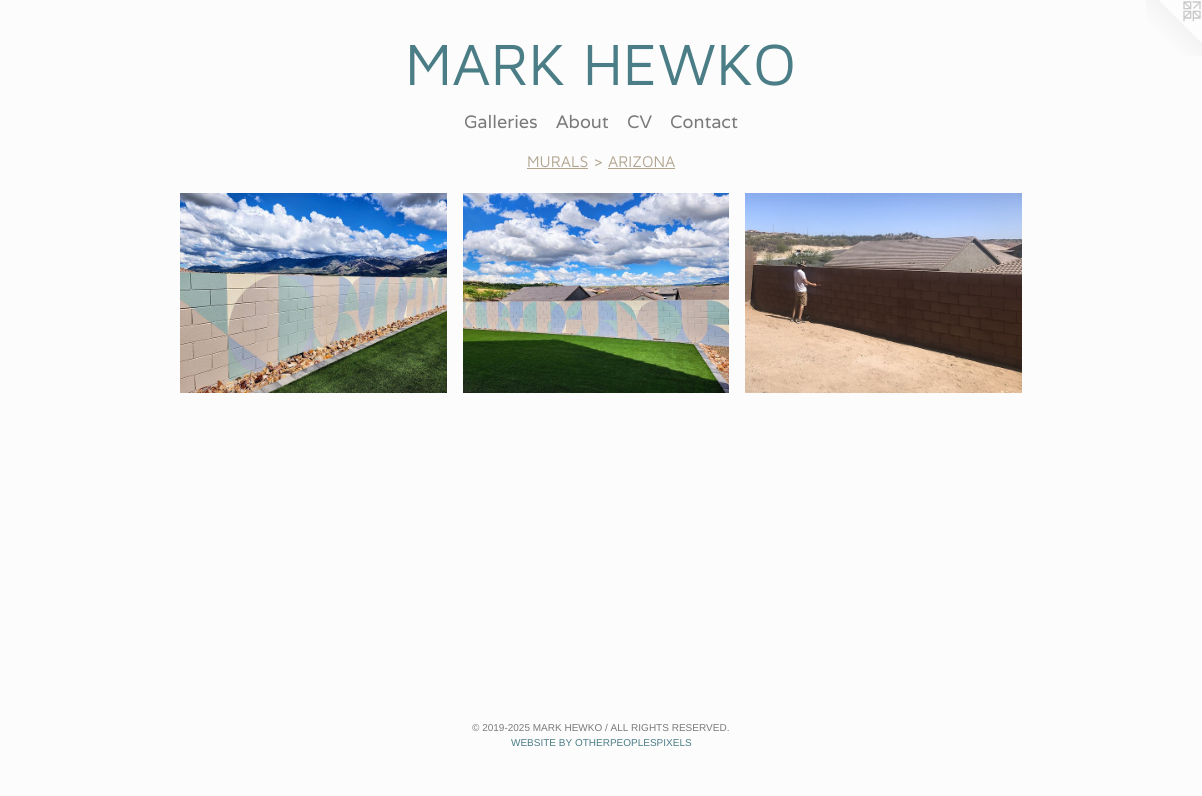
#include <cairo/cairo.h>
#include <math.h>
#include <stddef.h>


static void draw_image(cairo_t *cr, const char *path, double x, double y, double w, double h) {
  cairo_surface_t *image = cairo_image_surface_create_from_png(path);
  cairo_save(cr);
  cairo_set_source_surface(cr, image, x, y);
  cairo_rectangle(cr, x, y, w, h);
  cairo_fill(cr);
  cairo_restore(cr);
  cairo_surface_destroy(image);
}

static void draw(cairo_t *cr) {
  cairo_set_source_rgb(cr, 252 / 255.0, 252 / 255.0, 252 / 255.0);
  cairo_paint(cr);
  draw_image(cr, "images/1.png", 1146, 0, 56, 56);
  cairo_set_source_rgb(cr, 178 / 255.0, 165 / 255.0, 144 / 255.0);
  cairo_rectangle(cr, 527, 168, 61, 1);
  cairo_fill(cr);
  cairo_rectangle(cr, 608, 168, 67, 1);
  cairo_fill(cr);
  draw_image(cr, "images/2.png", 180, 193, 267, 200);
  draw_image(cr, "images/3.png", 463, 193, 266, 200);
  draw_image(cr, "images/4.png", 745, 193, 277, 200);
  cairo_select_font_face(cr, "Maven Pro", CAIRO_FONT_SLANT_NORMAL, CAIRO_FONT_WEIGHT_NORMAL);
  cairo_set_font_size(cr, 60);
  cairo_set_source_rgb(cr, 74 / 255.0, 125 / 255.0, 133 / 255.0);
  cairo_move_to(cr, 405, 85);
  cairo_show_text(cr, "MARK HEWKO");
  cairo_select_font_face(cr, "Varela", CAIRO_FONT_SLANT_NORMAL, CAIRO_FONT_WEIGHT_NORMAL);
  cairo_set_font_size(cr, 18);
  cairo_set_source_rgb(cr, 122 / 255.0, 122 / 255.0, 122 / 255.0);
  cairo_move_to(cr, 464, 128);
  cairo_show_text(cr, "Galleries");
  cairo_move_to(cr, 556, 128);
  cairo_show_text(cr, "About");
  cairo_move_to(cr, 627, 128);
  cairo_show_text(cr, "CV");
  cairo_move_to(cr, 670, 128);
  cairo_show_text(cr, "Contact");
  cairo_select_font_face(cr, "Maven Pro", CAIRO_FONT_SLANT_NORMAL, CAIRO_FONT_WEIGHT_NORMAL);
  cairo_set_font_size(cr, 16);
  cairo_set_source_rgb(cr, 178 / 255.0, 165 / 255.0, 144 / 255.0);
  cairo_move_to(cr, 527, 167);
  cairo_show_text(cr, "MURALS > ARIZONA");
  cairo_select_font_face(cr, "Liberation Sans", CAIRO_FONT_SLANT_NORMAL, CAIRO_FONT_WEIGHT_NORMAL);
  cairo_set_font_size(cr, 10);
  cairo_set_source_rgb(cr, 122 / 255.0, 122 / 255.0, 122 / 255.0);
  cairo_move_to(cr, 472, 731);
  cairo_show_text(cr, "© 2019-2025 MARK HEWKO / ALL RIGHTS RESERVED.");
  cairo_set_source_rgb(cr, 74 / 255.0, 125 / 255.0, 133 / 255.0);
  cairo_move_to(cr, 511, 746);
  cairo_show_text(cr, "WEBSITE BY OTHERPEOPLESPIXELS");
}

int main(void) {
  cairo_surface_t *surface = cairo_image_surface_create(CAIRO_FORMAT_RGB24, 1202, 796);
  cairo_t *cr = cairo_create(surface);
  cairo_font_options_t *options = cairo_font_options_create();
  cairo_font_options_set_hint_metrics(options, CAIRO_HINT_METRICS_OFF);
  cairo_font_options_set_hint_style(options, CAIRO_HINT_STYLE_NONE);
  cairo_set_font_options(cr, options);
  cairo_set_miter_limit(cr, 4);
  draw(cr);
  cairo_surface_write_to_png(surface, "out.png");
  cairo_font_options_destroy(options);
  cairo_destroy(cr);
  cairo_surface_destroy(surface);
  return 0;
}
